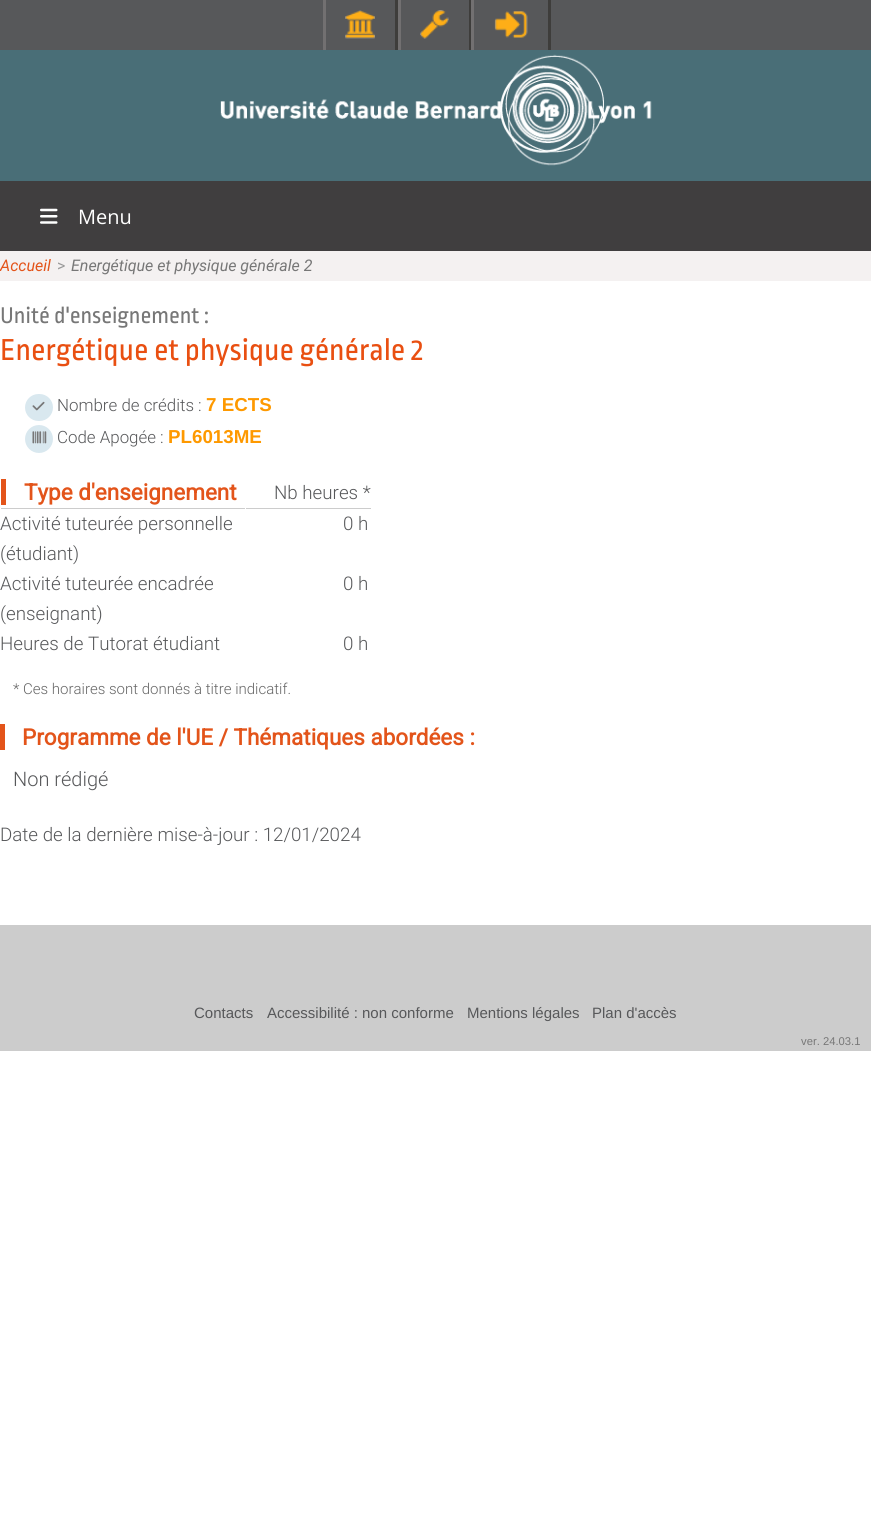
#include <cairo/cairo.h>
#include <math.h>
#include <stddef.h>


static void rounded_rect(cairo_t *cr, double x, double y, double w, double h, double r) {
  cairo_new_sub_path(cr);
  cairo_arc(cr, x + w - r, y + h - r, r, 0, M_PI / 2);
  cairo_arc(cr, x + r, y + h - r, r, M_PI / 2, M_PI);
  cairo_arc(cr, x + r, y + r, r, M_PI, 1.5 * M_PI);
  cairo_arc(cr, x + w - r, y + r, r, 1.5 * M_PI, 2 * M_PI);
  cairo_close_path(cr);
}

static void draw_image(cairo_t *cr, const char *path, double x, double y, double w, double h) {
  cairo_surface_t *image = cairo_image_surface_create_from_png(path);
  cairo_save(cr);
  cairo_set_source_surface(cr, image, x, y);
  cairo_rectangle(cr, x, y, w, h);
  cairo_fill(cr);
  cairo_restore(cr);
  cairo_surface_destroy(image);
}

static void draw(cairo_t *cr) {
  cairo_set_source_rgb(cr, 1, 1, 1);
  cairo_paint(cr);
  cairo_set_source_rgb(cr, 87 / 255.0, 88 / 255.0, 90 / 255.0);
  cairo_rectangle(cr, 0, 0, 871, 50);
  cairo_fill(cr);
  cairo_set_source_rgb(cr, 62 / 255.0, 61 / 255.0, 59 / 255.0);
  cairo_rectangle(cr, 395, 0, 3, 50);
  cairo_fill(cr);
  cairo_set_source_rgb(cr, 114 / 255.0, 112 / 255.0, 113 / 255.0);
  cairo_rectangle(cr, 323, 0, 3, 50);
  cairo_fill(cr);
  draw_image(cr, "images/1.png", 345, 10, 30, 29);
  cairo_set_source_rgb(cr, 62 / 255.0, 61 / 255.0, 59 / 255.0);
  cairo_rectangle(cr, 469, 0, 2, 50);
  cairo_fill(cr);
  cairo_set_source_rgb(cr, 114 / 255.0, 112 / 255.0, 113 / 255.0);
  cairo_rectangle(cr, 398, 0, 3, 50);
  cairo_fill(cr);
  draw_image(cr, "images/2.png", 420, 10, 29, 29);
  cairo_set_source_rgb(cr, 62 / 255.0, 61 / 255.0, 59 / 255.0);
  cairo_rectangle(cr, 548, 0, 3, 50);
  cairo_fill(cr);
  cairo_set_source_rgb(cr, 114 / 255.0, 112 / 255.0, 113 / 255.0);
  cairo_rectangle(cr, 471, 0, 3, 50);
  cairo_fill(cr);
  draw_image(cr, "images/3.png", 494, 11, 34, 27);
  cairo_set_source_rgb(cr, 73 / 255.0, 110 / 255.0, 119 / 255.0);
  cairo_rectangle(cr, 0, 50, 871, 131);
  cairo_fill(cr);
  draw_image(cr, "images/4.png", 220, 54, 432, 112);
  cairo_set_source_rgb(cr, 64 / 255.0, 62 / 255.0, 63 / 255.0);
  cairo_rectangle(cr, 0, 181, 871, 70);
  cairo_fill(cr);
  draw_image(cr, "images/5.png", 40, 208, 18, 16);
  cairo_set_source_rgb(cr, 244 / 255.0, 241 / 255.0, 241 / 255.0);
  cairo_rectangle(cr, 0, 251, 871, 30);
  cairo_fill(cr);
  cairo_set_source_rgb(cr, 217 / 255.0, 232 / 255.0, 239 / 255.0);
  rounded_rect(cr, 25, 394, 28, 27, 13.5);
  cairo_fill(cr);
  draw_image(cr, "images/6.png", 32, 401, 13, 10);
  cairo_arc(cr, 39, 439, 14, 0, 2 * M_PI);
  cairo_fill(cr);
  draw_image(cr, "images/7.png", 32, 431, 15, 13);
  cairo_set_source_rgb(cr, 204 / 255.0, 204 / 255.0, 204 / 255.0);
  cairo_rectangle(cr, 1, 508, 244, 1);
  cairo_fill(cr);
  cairo_set_source_rgb(cr, 227 / 255.0, 84 / 255.0, 26 / 255.0);
  cairo_rectangle(cr, 1, 479, 5, 26);
  cairo_fill(cr);
  cairo_set_source_rgb(cr, 204 / 255.0, 204 / 255.0, 204 / 255.0);
  cairo_rectangle(cr, 246, 508, 125, 1);
  cairo_fill(cr);
  cairo_set_source_rgb(cr, 227 / 255.0, 84 / 255.0, 26 / 255.0);
  cairo_rectangle(cr, 0, 724, 5, 26);
  cairo_fill(cr);
  cairo_set_source_rgb(cr, 204 / 255.0, 204 / 255.0, 204 / 255.0);
  cairo_rectangle(cr, 0, 925, 871, 126);
  cairo_fill(cr);
  cairo_select_font_face(cr, "Open Sans", CAIRO_FONT_SLANT_NORMAL, CAIRO_FONT_WEIGHT_NORMAL);
  cairo_set_font_size(cr, 20);
  cairo_set_source_rgb(cr, 1, 1, 1);
  cairo_move_to(cr, 78, 224);
  cairo_show_text(cr, "Menu");
  cairo_select_font_face(cr, "Roboto", CAIRO_FONT_SLANT_ITALIC, CAIRO_FONT_WEIGHT_NORMAL);
  cairo_set_font_size(cr, 16);
  cairo_set_source_rgb(cr, 227 / 255.0, 84 / 255.0, 26 / 255.0);
  cairo_move_to(cr, 0, 271);
  cairo_show_text(cr, "Accueil");
  cairo_select_font_face(cr, "Roboto", CAIRO_FONT_SLANT_NORMAL, CAIRO_FONT_WEIGHT_NORMAL);
  cairo_set_source_rgb(cr, 153 / 255.0, 153 / 255.0, 153 / 255.0);
  cairo_move_to(cr, 57, 271);
  cairo_show_text(cr, ">");
  cairo_select_font_face(cr, "Roboto", CAIRO_FONT_SLANT_ITALIC, CAIRO_FONT_WEIGHT_NORMAL);
  cairo_set_source_rgb(cr, 119 / 255.0, 119 / 255.0, 119 / 255.0);
  cairo_move_to(cr, 71, 271);
  cairo_show_text(cr, "Energétique et physique générale 2");
  cairo_select_font_face(cr, "Ropa Sans", CAIRO_FONT_SLANT_NORMAL, CAIRO_FONT_WEIGHT_NORMAL);
  cairo_set_font_size(cr, 24);
  cairo_move_to(cr, 0, 323);
  cairo_show_text(cr, "Unité d'enseignement :");
  cairo_set_font_size(cr, 32);
  cairo_set_source_rgb(cr, 233 / 255.0, 79 / 255.0, 17 / 255.0);
  cairo_move_to(cr, 0, 360);
  cairo_show_text(cr, "Energétique et physique générale 2");
  cairo_select_font_face(cr, "Roboto Light", CAIRO_FONT_SLANT_NORMAL, CAIRO_FONT_WEIGHT_NORMAL);
  cairo_set_font_size(cr, 16.9);
  cairo_set_source_rgb(cr, 87 / 255.0, 88 / 255.0, 90 / 255.0);
  cairo_move_to(cr, 57, 411);
  cairo_show_text(cr, "Nombre de crédits :");
  cairo_select_font_face(cr, "Liberation Sans", CAIRO_FONT_SLANT_NORMAL, CAIRO_FONT_WEIGHT_BOLD);
  cairo_set_font_size(cr, 18.75);
  cairo_set_source_rgb(cr, 254 / 255.0, 153 / 255.0, 0);
  cairo_move_to(cr, 206, 411);
  cairo_show_text(cr, "7 ECTS");
  cairo_select_font_face(cr, "Roboto Light", CAIRO_FONT_SLANT_NORMAL, CAIRO_FONT_WEIGHT_NORMAL);
  cairo_set_font_size(cr, 16.9);
  cairo_set_source_rgb(cr, 87 / 255.0, 88 / 255.0, 90 / 255.0);
  cairo_move_to(cr, 57, 443);
  cairo_show_text(cr, "Code Apogée :");
  cairo_select_font_face(cr, "Liberation Sans", CAIRO_FONT_SLANT_NORMAL, CAIRO_FONT_WEIGHT_BOLD);
  cairo_set_font_size(cr, 18.75);
  cairo_set_source_rgb(cr, 254 / 255.0, 153 / 255.0, 0);
  cairo_move_to(cr, 168, 443);
  cairo_show_text(cr, "PL6013ME");
  cairo_select_font_face(cr, "Roboto", CAIRO_FONT_SLANT_NORMAL, CAIRO_FONT_WEIGHT_BOLD);
  cairo_set_font_size(cr, 22.5);
  cairo_set_source_rgb(cr, 227 / 255.0, 84 / 255.0, 26 / 255.0);
  cairo_move_to(cr, 24, 500);
  cairo_show_text(cr, "Type d'enseignement");
  cairo_select_font_face(cr, "Roboto Light", CAIRO_FONT_SLANT_NORMAL, CAIRO_FONT_WEIGHT_NORMAL);
  cairo_set_font_size(cr, 18.75);
  cairo_set_source_rgb(cr, 87 / 255.0, 88 / 255.0, 90 / 255.0);
  cairo_move_to(cr, 274, 499);
  cairo_show_text(cr, "Nb heures *");
  cairo_move_to(cr, 0, 530);
  cairo_show_text(cr, "Activité tuteurée personnelle");
  cairo_move_to(cr, 0, 560);
  cairo_show_text(cr, "(étudiant)");
  cairo_move_to(cr, 343, 530);
  cairo_show_text(cr, "0 h");
  cairo_move_to(cr, 0, 590);
  cairo_show_text(cr, "Activité tuteurée encadrée");
  cairo_move_to(cr, 0, 620);
  cairo_show_text(cr, "(enseignant)");
  cairo_move_to(cr, 343, 590);
  cairo_show_text(cr, "0 h");
  cairo_move_to(cr, 0, 650);
  cairo_show_text(cr, "Heures de Tutorat étudiant");
  cairo_move_to(cr, 343, 650);
  cairo_show_text(cr, "0 h");
  cairo_set_font_size(cr, 15);
  cairo_set_source_rgb(cr, 102 / 255.0, 102 / 255.0, 102 / 255.0);
  cairo_move_to(cr, 13, 694);
  cairo_show_text(cr, "* Ces horaires sont donnés à titre indicatif.");
  cairo_select_font_face(cr, "Roboto", CAIRO_FONT_SLANT_NORMAL, CAIRO_FONT_WEIGHT_BOLD);
  cairo_set_font_size(cr, 22.5);
  cairo_set_source_rgb(cr, 227 / 255.0, 84 / 255.0, 26 / 255.0);
  cairo_move_to(cr, 22, 745);
  cairo_show_text(cr, "Programme de l'UE / Thématiques abordées :");
  cairo_select_font_face(cr, "Roboto Light", CAIRO_FONT_SLANT_NORMAL, CAIRO_FONT_WEIGHT_NORMAL);
  cairo_set_font_size(cr, 20);
  cairo_set_source_rgb(cr, 87 / 255.0, 88 / 255.0, 90 / 255.0);
  cairo_move_to(cr, 13, 786);
  cairo_show_text(cr, "Non rédigé");
  cairo_set_font_size(cr, 18.75);
  cairo_move_to(cr, 0, 841);
  cairo_show_text(cr, "Date de la dernière mise-à-jour : 12/01/2024");
  cairo_select_font_face(cr, "Liberation Sans", CAIRO_FONT_SLANT_NORMAL, CAIRO_FONT_WEIGHT_NORMAL);
  cairo_set_font_size(cr, 15);
  cairo_move_to(cr, 194, 1018);
  cairo_show_text(cr, "Contacts");
  cairo_move_to(cr, 267, 1018);
  cairo_show_text(cr, "Accessibilité : non conforme");
  cairo_move_to(cr, 467, 1018);
  cairo_show_text(cr, "Mentions légales");
  cairo_move_to(cr, 592, 1018);
  cairo_show_text(cr, "Plan d'accès");
  cairo_set_font_size(cr, 11.25);
  cairo_set_source_rgb(cr, 119 / 255.0, 119 / 255.0, 119 / 255.0);
  cairo_move_to(cr, 801, 1045);
  cairo_show_text(cr, "ver. 24.03.1");
}

int main(void) {
  cairo_surface_t *surface = cairo_image_surface_create(CAIRO_FORMAT_RGB24, 871, 1518);
  cairo_t *cr = cairo_create(surface);
  cairo_font_options_t *options = cairo_font_options_create();
  cairo_font_options_set_hint_metrics(options, CAIRO_HINT_METRICS_OFF);
  cairo_font_options_set_hint_style(options, CAIRO_HINT_STYLE_NONE);
  cairo_set_font_options(cr, options);
  cairo_set_miter_limit(cr, 4);
  draw(cr);
  cairo_surface_write_to_png(surface, "out.png");
  cairo_font_options_destroy(options);
  cairo_destroy(cr);
  cairo_surface_destroy(surface);
  return 0;
}
